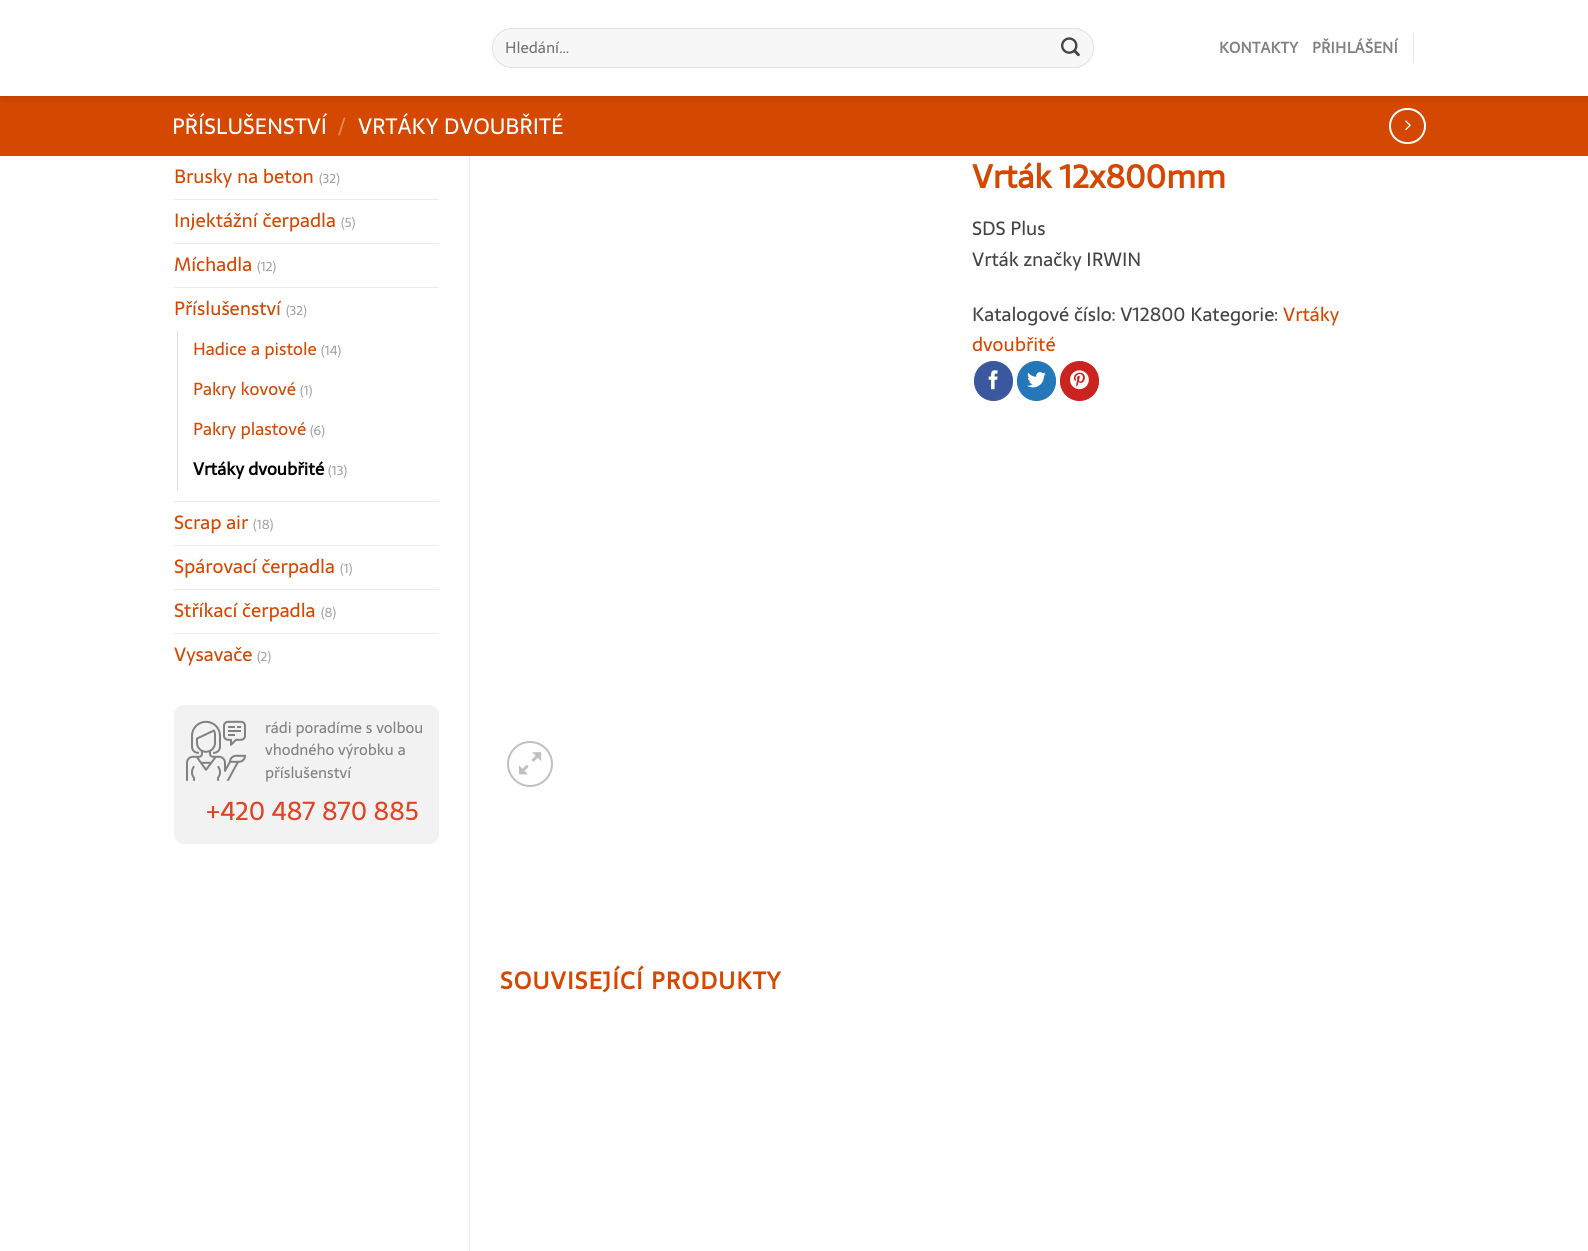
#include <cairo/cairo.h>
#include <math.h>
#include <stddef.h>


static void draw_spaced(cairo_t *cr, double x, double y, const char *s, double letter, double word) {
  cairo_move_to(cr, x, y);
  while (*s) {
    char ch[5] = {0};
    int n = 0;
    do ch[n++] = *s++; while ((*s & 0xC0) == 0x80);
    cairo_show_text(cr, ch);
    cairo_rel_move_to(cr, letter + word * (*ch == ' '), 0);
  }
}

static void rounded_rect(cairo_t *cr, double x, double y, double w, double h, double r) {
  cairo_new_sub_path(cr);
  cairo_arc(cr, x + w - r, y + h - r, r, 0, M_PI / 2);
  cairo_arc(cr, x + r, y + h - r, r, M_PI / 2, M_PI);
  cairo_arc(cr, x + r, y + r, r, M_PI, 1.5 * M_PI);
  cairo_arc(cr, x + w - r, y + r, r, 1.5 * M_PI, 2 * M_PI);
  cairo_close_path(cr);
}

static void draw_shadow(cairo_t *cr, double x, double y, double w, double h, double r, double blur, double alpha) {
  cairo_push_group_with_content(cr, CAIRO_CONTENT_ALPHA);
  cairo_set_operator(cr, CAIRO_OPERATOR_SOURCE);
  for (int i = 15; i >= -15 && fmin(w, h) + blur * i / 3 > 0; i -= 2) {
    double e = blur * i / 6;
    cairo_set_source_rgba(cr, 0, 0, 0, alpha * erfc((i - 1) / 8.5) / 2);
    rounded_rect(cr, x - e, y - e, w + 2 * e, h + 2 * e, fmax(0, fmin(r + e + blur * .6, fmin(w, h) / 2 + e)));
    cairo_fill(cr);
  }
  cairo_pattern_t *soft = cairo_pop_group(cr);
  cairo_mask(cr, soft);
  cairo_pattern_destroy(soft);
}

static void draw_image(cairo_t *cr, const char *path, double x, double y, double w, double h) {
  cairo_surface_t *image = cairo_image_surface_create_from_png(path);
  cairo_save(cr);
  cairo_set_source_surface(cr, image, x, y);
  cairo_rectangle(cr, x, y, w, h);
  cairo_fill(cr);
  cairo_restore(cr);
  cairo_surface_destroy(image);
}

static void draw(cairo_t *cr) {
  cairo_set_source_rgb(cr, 1, 1, 1);
  cairo_paint(cr);
  cairo_set_source_rgb(cr, 213 / 255.0, 72 / 255.0, 1 / 255.0);
  cairo_rectangle(cr, 0, 96, 1588, 60);
  cairo_fill(cr);
  rounded_rect(cr, 1390, 109, 35, 34, 17);
  cairo_set_source_rgb(cr, 1, 1, 1);
  cairo_stroke(cr);
  cairo_save(cr);
  cairo_rectangle(cr, 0, 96, 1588, 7);
  cairo_clip(cr);
  cairo_set_source_rgb(cr, 0, 0, 0);
  draw_shadow(cr, 1, 1, 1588, 96, 0, 5, 0.15);
  cairo_restore(cr);
  cairo_set_source_rgb(cr, 247 / 255.0, 247 / 255.0, 247 / 255.0);
  rounded_rect(cr, 492, 28, 602, 40, 20);
  cairo_fill(cr);
  rounded_rect(cr, 492.5, 28.5, 601, 39, 19.5);
  cairo_set_source_rgba(cr, 0, 0, 0, 0.09);
  cairo_set_line_width(cr, 1);
  cairo_stroke(cr);
  draw_image(cr, "images/1.png", 1061, 37, 19, 20);
  cairo_set_source_rgb(cr, 230 / 255.0, 230 / 255.0, 230 / 255.0);
  cairo_rectangle(cr, 1413, 33, 1, 30);
  cairo_fill(cr);
  draw_image(cr, "images/2.png", 1405, 120, 6, 11);
  cairo_set_source_rgb(cr, 236 / 255.0, 236 / 255.0, 236 / 255.0);
  cairo_rectangle(cr, 174, 199, 265, 1);
  cairo_fill(cr);
  cairo_rectangle(cr, 174, 243, 265, 1);
  cairo_fill(cr);
  cairo_rectangle(cr, 174, 287, 265, 1);
  cairo_fill(cr);
  cairo_set_source_rgb(cr, 221 / 255.0, 221 / 255.0, 221 / 255.0);
  cairo_rectangle(cr, 177, 331, 1, 160);
  cairo_fill(cr);
  cairo_set_source_rgb(cr, 236 / 255.0, 236 / 255.0, 236 / 255.0);
  cairo_rectangle(cr, 174, 501, 265, 1);
  cairo_fill(cr);
  cairo_rectangle(cr, 174, 545, 265, 1);
  cairo_fill(cr);
  cairo_rectangle(cr, 174, 589, 265, 1);
  cairo_fill(cr);
  cairo_rectangle(cr, 174, 633, 265, 1);
  cairo_fill(cr);
  cairo_set_source_rgb(cr, 242 / 255.0, 242 / 255.0, 242 / 255.0);
  rounded_rect(cr, 174, 705, 265, 139, 10);
  cairo_fill(cr);
  draw_image(cr, "images/3.png", 186, 720, 60, 61);
  cairo_set_source_rgb(cr, 236 / 255.0, 236 / 255.0, 236 / 255.0);
  cairo_rectangle(cr, 469, 156, 1, 1095);
  cairo_fill(cr);
  cairo_set_source_rgb(cr, 58 / 255.0, 88 / 255.0, 157 / 255.0);
  rounded_rect(cr, 974.5, 361.5, 38, 39, 19);
  cairo_fill_preserve(cr);
  cairo_stroke(cr);
  draw_image(cr, "images/4.png", 988, 370, 10, 20);
  cairo_set_source_rgb(cr, 36 / 255.0, 120 / 255.0, 186 / 255.0);
  rounded_rect(cr, 1017.5, 361.5, 38, 39, 19);
  cairo_fill_preserve(cr);
  cairo_stroke(cr);
  draw_image(cr, "images/5.png", 1027, 372, 19, 16);
  cairo_set_source_rgb(cr, 203 / 255.0, 35 / 255.0, 32 / 255.0);
  rounded_rect(cr, 1060.5, 361.5, 38, 39, 19);
  cairo_fill_preserve(cr);
  cairo_stroke(cr);
  draw_image(cr, "images/6.png", 1070, 370, 19, 20);
  cairo_arc(cr, 530, 764, 22, 0, 2 * M_PI);
  cairo_set_source_rgb(cr, 192 / 255.0, 192 / 255.0, 192 / 255.0);
  cairo_set_line_width(cr, 2);
  cairo_stroke(cr);
  draw_image(cr, "images/7.png", 519, 752, 23, 23);
  cairo_select_font_face(cr, "Sarala", CAIRO_FONT_SLANT_NORMAL, CAIRO_FONT_WEIGHT_NORMAL);
  cairo_set_font_size(cr, 15.5);
  cairo_set_source_rgb(cr, 117 / 255.0, 117 / 255.0, 117 / 255.0);
  cairo_move_to(cr, 505, 53);
  cairo_show_text(cr, "Hledání…");
  cairo_select_font_face(cr, "Sarala", CAIRO_FONT_SLANT_NORMAL, CAIRO_FONT_WEIGHT_BOLD);
  cairo_set_font_size(cr, 15.25);
  cairo_set_source_rgb(cr, 129 / 255.0, 129 / 255.0, 129 / 255.0);
  draw_spaced(cr, 1219, 53, "KONTAKTY", 0.25, 0);
  draw_spaced(cr, 1312, 53, "PŘIHLÁŠENÍ", 0.25, 0);
  cairo_select_font_face(cr, "Sarala", CAIRO_FONT_SLANT_NORMAL, CAIRO_FONT_WEIGHT_NORMAL);
  cairo_set_font_size(cr, 22);
  cairo_set_source_rgb(cr, 1, 1, 1);
  cairo_move_to(cr, 172, 134);
  cairo_show_text(cr, "PŘÍSLUŠENSTVÍ");
  cairo_set_source_rgb(cr, 228 / 255.0, 136 / 255.0, 90 / 255.0);
  cairo_move_to(cr, 338, 134);
  cairo_show_text(cr, "/");
  cairo_set_source_rgb(cr, 1, 1, 1);
  cairo_move_to(cr, 358, 134);
  cairo_show_text(cr, "VRTÁKY DVOUBŘITÉ");
  cairo_set_font_size(cr, 19);
  cairo_set_source_rgb(cr, 213 / 255.0, 72 / 255.0, 1 / 255.0);
  cairo_move_to(cr, 174, 183);
  cairo_show_text(cr, "Brusky na beton");
  cairo_set_font_size(cr, 13);
  cairo_set_source_rgb(cr, 162 / 255.0, 162 / 255.0, 162 / 255.0);
  cairo_move_to(cr, 319, 183);
  cairo_show_text(cr, "(32)");
  cairo_set_font_size(cr, 19);
  cairo_set_source_rgb(cr, 213 / 255.0, 72 / 255.0, 1 / 255.0);
  cairo_move_to(cr, 174, 227);
  cairo_show_text(cr, "Injektážní čerpadla");
  cairo_set_font_size(cr, 13);
  cairo_set_source_rgb(cr, 162 / 255.0, 162 / 255.0, 162 / 255.0);
  cairo_move_to(cr, 341, 227);
  cairo_show_text(cr, "(5)");
  cairo_set_font_size(cr, 19);
  cairo_set_source_rgb(cr, 213 / 255.0, 72 / 255.0, 1 / 255.0);
  cairo_move_to(cr, 174, 271);
  cairo_show_text(cr, "Míchadla");
  cairo_set_font_size(cr, 13);
  cairo_set_source_rgb(cr, 162 / 255.0, 162 / 255.0, 162 / 255.0);
  cairo_move_to(cr, 257, 271);
  cairo_show_text(cr, "(12)");
  cairo_set_font_size(cr, 19);
  cairo_set_source_rgb(cr, 213 / 255.0, 72 / 255.0, 1 / 255.0);
  cairo_move_to(cr, 174, 315);
  cairo_show_text(cr, "Příslušenství");
  cairo_set_font_size(cr, 13);
  cairo_set_source_rgb(cr, 162 / 255.0, 162 / 255.0, 162 / 255.0);
  cairo_move_to(cr, 286, 315);
  cairo_show_text(cr, "(32)");
  cairo_set_font_size(cr, 17.25);
  cairo_set_source_rgb(cr, 213 / 255.0, 72 / 255.0, 1 / 255.0);
  cairo_move_to(cr, 193, 355);
  cairo_show_text(cr, "Hadice a pistole");
  cairo_set_font_size(cr, 13);
  cairo_set_source_rgb(cr, 162 / 255.0, 162 / 255.0, 162 / 255.0);
  cairo_move_to(cr, 321, 355);
  cairo_show_text(cr, "(14)");
  cairo_set_font_size(cr, 17.25);
  cairo_set_source_rgb(cr, 213 / 255.0, 72 / 255.0, 1 / 255.0);
  cairo_move_to(cr, 193, 395);
  cairo_show_text(cr, "Pakry kovové");
  cairo_set_font_size(cr, 13);
  cairo_set_source_rgb(cr, 162 / 255.0, 162 / 255.0, 162 / 255.0);
  cairo_move_to(cr, 300, 395);
  cairo_show_text(cr, "(1)");
  cairo_set_font_size(cr, 17.25);
  cairo_set_source_rgb(cr, 213 / 255.0, 72 / 255.0, 1 / 255.0);
  cairo_move_to(cr, 193, 435);
  cairo_show_text(cr, "Pakry plastové");
  cairo_set_font_size(cr, 13);
  cairo_set_source_rgb(cr, 162 / 255.0, 162 / 255.0, 162 / 255.0);
  cairo_move_to(cr, 310, 435);
  cairo_show_text(cr, "(6)");
  cairo_select_font_face(cr, "Sarala", CAIRO_FONT_SLANT_NORMAL, CAIRO_FONT_WEIGHT_BOLD);
  cairo_set_font_size(cr, 17.25);
  cairo_set_source_rgb(cr, 0, 0, 0);
  cairo_move_to(cr, 193, 475);
  cairo_show_text(cr, "Vrtáky dvoubřité");
  cairo_select_font_face(cr, "Sarala", CAIRO_FONT_SLANT_NORMAL, CAIRO_FONT_WEIGHT_NORMAL);
  cairo_set_font_size(cr, 13);
  cairo_set_source_rgb(cr, 162 / 255.0, 162 / 255.0, 162 / 255.0);
  cairo_move_to(cr, 328, 475);
  cairo_show_text(cr, "(13)");
  cairo_set_font_size(cr, 19);
  cairo_set_source_rgb(cr, 213 / 255.0, 72 / 255.0, 1 / 255.0);
  cairo_move_to(cr, 174, 529);
  cairo_show_text(cr, "Scrap air");
  cairo_set_font_size(cr, 13);
  cairo_set_source_rgb(cr, 162 / 255.0, 162 / 255.0, 162 / 255.0);
  cairo_move_to(cr, 253, 529);
  cairo_show_text(cr, "(18)");
  cairo_set_font_size(cr, 19);
  cairo_set_source_rgb(cr, 213 / 255.0, 72 / 255.0, 1 / 255.0);
  cairo_move_to(cr, 174, 573);
  cairo_show_text(cr, "Spárovací čerpadla");
  cairo_set_font_size(cr, 13);
  cairo_set_source_rgb(cr, 162 / 255.0, 162 / 255.0, 162 / 255.0);
  cairo_move_to(cr, 340, 573);
  cairo_show_text(cr, "(1)");
  cairo_set_font_size(cr, 19);
  cairo_set_source_rgb(cr, 213 / 255.0, 72 / 255.0, 1 / 255.0);
  cairo_move_to(cr, 174, 617);
  cairo_show_text(cr, "Stříkací čerpadla");
  cairo_set_font_size(cr, 13);
  cairo_set_source_rgb(cr, 162 / 255.0, 162 / 255.0, 162 / 255.0);
  cairo_move_to(cr, 321, 617);
  cairo_show_text(cr, "(8)");
  cairo_set_font_size(cr, 19);
  cairo_set_source_rgb(cr, 213 / 255.0, 72 / 255.0, 1 / 255.0);
  cairo_move_to(cr, 174, 661);
  cairo_show_text(cr, "Vysavače");
  cairo_set_font_size(cr, 13);
  cairo_set_source_rgb(cr, 162 / 255.0, 162 / 255.0, 162 / 255.0);
  cairo_move_to(cr, 257, 661);
  cairo_show_text(cr, "(2)");
  cairo_set_font_size(cr, 15.25);
  cairo_set_source_rgb(cr, 129 / 255.0, 129 / 255.0, 129 / 255.0);
  cairo_move_to(cr, 265, 733);
  cairo_show_text(cr, "rádi poradíme s volbou");
  cairo_move_to(cr, 265, 755);
  cairo_show_text(cr, "vhodného výrobku a");
  cairo_move_to(cr, 265, 778);
  cairo_show_text(cr, "příslušenství");
  cairo_set_font_size(cr, 25.75);
  cairo_set_source_rgb(cr, 222 / 255.0, 69 / 255.0, 35 / 255.0);
  cairo_move_to(cr, 206, 820);
  cairo_show_text(cr, "+420 487 870 885");
  cairo_select_font_face(cr, "Sarala", CAIRO_FONT_SLANT_NORMAL, CAIRO_FONT_WEIGHT_BOLD);
  cairo_set_font_size(cr, 32.25);
  cairo_set_source_rgb(cr, 213 / 255.0, 72 / 255.0, 1 / 255.0);
  cairo_move_to(cr, 972, 188);
  cairo_show_text(cr, "Vrták 12x800mm");
  cairo_select_font_face(cr, "Sarala", CAIRO_FONT_SLANT_NORMAL, CAIRO_FONT_WEIGHT_NORMAL);
  cairo_set_font_size(cr, 19);
  cairo_set_source_rgb(cr, 68 / 255.0, 68 / 255.0, 68 / 255.0);
  cairo_move_to(cr, 972, 235);
  cairo_show_text(cr, "SDS Plus");
  cairo_move_to(cr, 972, 266);
  cairo_show_text(cr, "Vrták značky IRWIN");
  cairo_move_to(cr, 972, 321);
  cairo_show_text(cr, "Katalogové číslo: V12800 Kategorie:");
  cairo_set_source_rgb(cr, 213 / 255.0, 72 / 255.0, 1 / 255.0);
  cairo_move_to(cr, 1283, 321);
  cairo_show_text(cr, "Vrtáky");
  cairo_move_to(cr, 972, 351);
  cairo_show_text(cr, "dvoubřité");
  cairo_select_font_face(cr, "Sarala", CAIRO_FONT_SLANT_NORMAL, CAIRO_FONT_WEIGHT_BOLD);
  cairo_set_font_size(cr, 23.75);
  draw_spaced(cr, 500, 989, "SOUVISEJÍCÍ PRODUKTY", 1.2, 0);
}

int main(void) {
  cairo_surface_t *surface = cairo_image_surface_create(CAIRO_FORMAT_RGB24, 1588, 1251);
  cairo_t *cr = cairo_create(surface);
  cairo_font_options_t *options = cairo_font_options_create();
  cairo_font_options_set_hint_metrics(options, CAIRO_HINT_METRICS_OFF);
  cairo_font_options_set_hint_style(options, CAIRO_HINT_STYLE_NONE);
  cairo_set_font_options(cr, options);
  cairo_set_miter_limit(cr, 4);
  draw(cr);
  cairo_surface_write_to_png(surface, "out.png");
  cairo_font_options_destroy(options);
  cairo_destroy(cr);
  cairo_surface_destroy(surface);
  return 0;
}
